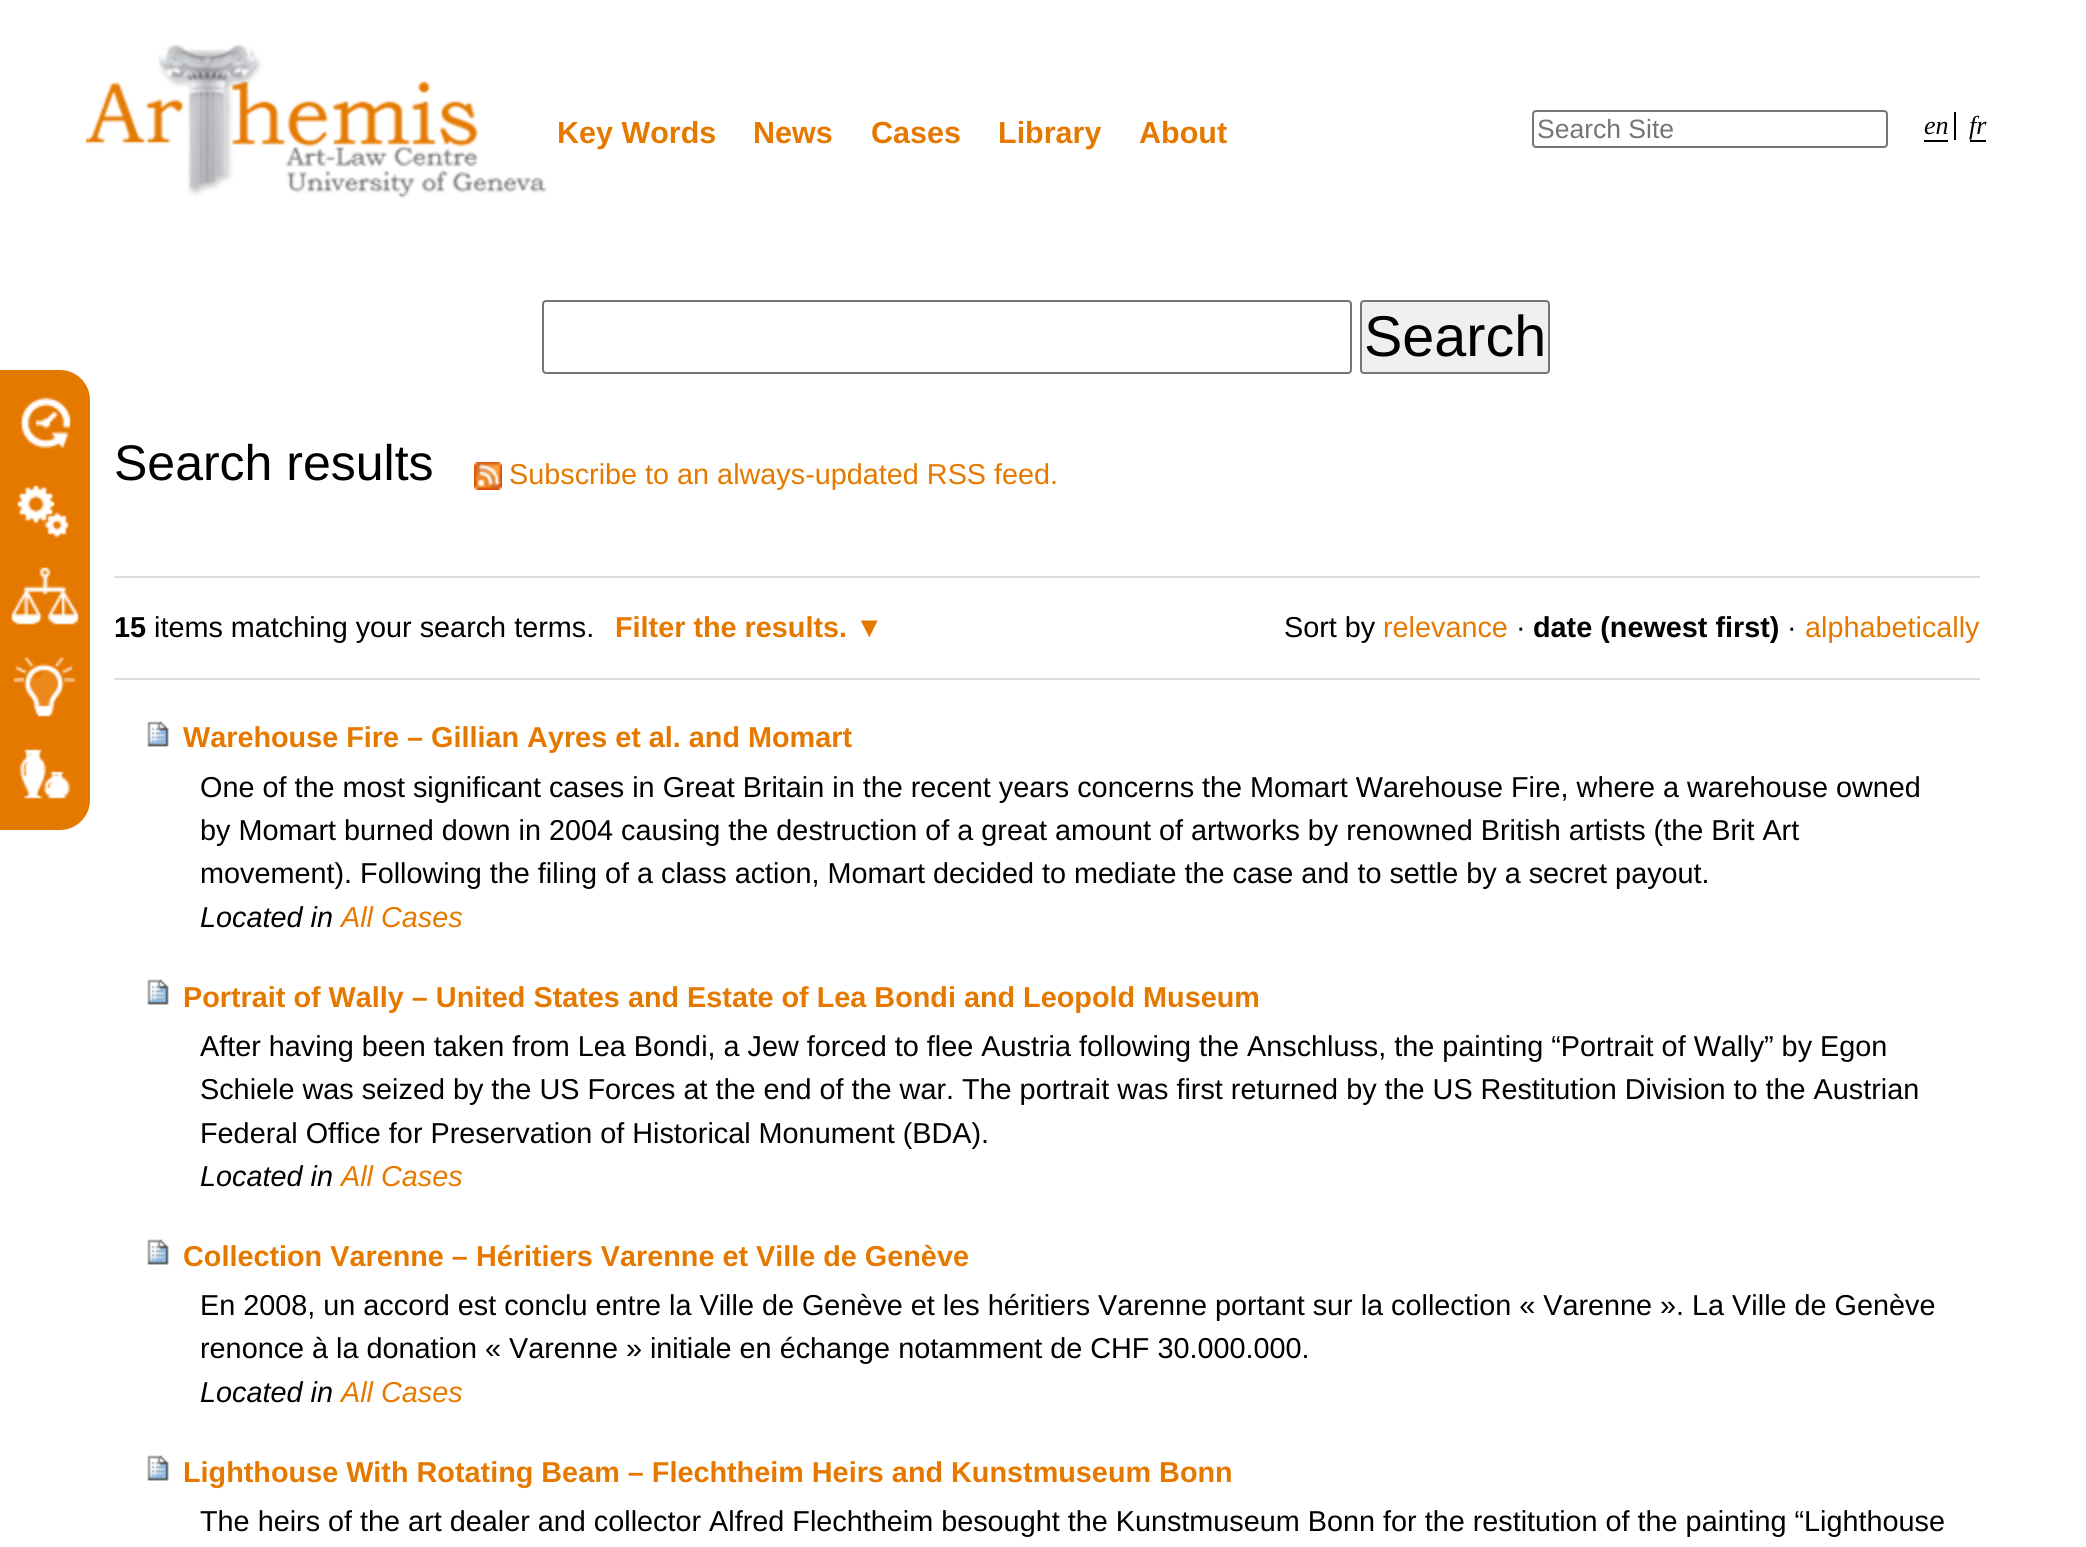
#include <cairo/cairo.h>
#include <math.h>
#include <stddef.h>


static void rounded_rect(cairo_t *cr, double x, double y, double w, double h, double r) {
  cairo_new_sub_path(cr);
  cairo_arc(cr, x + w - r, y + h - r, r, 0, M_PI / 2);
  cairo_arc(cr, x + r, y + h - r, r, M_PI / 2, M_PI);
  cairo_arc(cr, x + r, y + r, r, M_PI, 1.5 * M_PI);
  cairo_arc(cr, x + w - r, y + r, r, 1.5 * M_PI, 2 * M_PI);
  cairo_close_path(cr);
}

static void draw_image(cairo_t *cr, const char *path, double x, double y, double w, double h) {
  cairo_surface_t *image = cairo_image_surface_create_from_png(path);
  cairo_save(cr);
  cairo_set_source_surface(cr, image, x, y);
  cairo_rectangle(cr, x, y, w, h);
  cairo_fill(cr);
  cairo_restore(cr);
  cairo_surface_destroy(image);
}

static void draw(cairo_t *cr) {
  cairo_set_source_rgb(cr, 1, 1, 1);
  cairo_paint(cr);
  cairo_set_source_rgb(cr, 229 / 255.0, 121 / 255.0, 0);
  cairo_new_path(cr);
  cairo_move_to(cr, 0, 370);
  cairo_line_to(cr, 60, 370);
  cairo_curve_to(cr, 76.5, 370, 90, 383.5, 90, 400);
  cairo_line_to(cr, 90, 800);
  cairo_curve_to(cr, 90, 816.5, 76.5, 830, 60, 830);
  cairo_line_to(cr, 0, 830);
  cairo_close_path(cr);
  cairo_fill(cr);
  draw_image(cr, "images/1.png", 19, 397, 52, 52);
  draw_image(cr, "images/2.png", 17, 485, 52, 54);
  draw_image(cr, "images/3.png", 11, 567, 68, 58);
  draw_image(cr, "images/4.png", 13, 656, 64, 61);
  draw_image(cr, "images/5.png", 19, 749, 52, 50);
  draw_image(cr, "images/6.png", 86, 44, 461, 155);
  rounded_rect(cr, 1533, 111, 354, 36, 3);
  cairo_set_source_rgb(cr, 118 / 255.0, 118 / 255.0, 118 / 255.0);
  cairo_stroke(cr);
  cairo_set_source_rgb(cr, 0, 0, 0);
  cairo_rectangle(cr, 1954, 112, 2, 28);
  cairo_fill(cr);
  cairo_rectangle(cr, 1924, 140, 24, 2);
  cairo_fill(cr);
  cairo_rectangle(cr, 1970, 140, 16, 2);
  cairo_fill(cr);
  rounded_rect(cr, 543, 301, 808, 72, 3);
  cairo_set_source_rgb(cr, 118 / 255.0, 118 / 255.0, 118 / 255.0);
  cairo_stroke(cr);
  cairo_set_source_rgb(cr, 239 / 255.0, 239 / 255.0, 239 / 255.0);
  rounded_rect(cr, 1361, 301, 188, 72, 3);
  cairo_fill_preserve(cr);
  cairo_set_source_rgb(cr, 118 / 255.0, 118 / 255.0, 118 / 255.0);
  cairo_stroke(cr);
  draw_image(cr, "images/7.png", 474, 462, 28, 28);
  cairo_set_source_rgb(cr, 221 / 255.0, 221 / 255.0, 221 / 255.0);
  cairo_rectangle(cr, 114, 576, 1866, 2);
  cairo_fill(cr);
  cairo_rectangle(cr, 114, 678, 1866, 2);
  cairo_fill(cr);
  draw_image(cr, "images/8.png", 147, 721, 22, 26);
  draw_image(cr, "images/8.png", 147, 979, 22, 26);
  draw_image(cr, "images/8.png", 147, 1239, 22, 26);
  draw_image(cr, "images/8.png", 147, 1455, 22, 26);
  cairo_select_font_face(cr, "Liberation Sans", CAIRO_FONT_SLANT_NORMAL, CAIRO_FONT_WEIGHT_BOLD);
  cairo_set_font_size(cr, 30.5);
  cairo_set_source_rgb(cr, 229 / 255.0, 121 / 255.0, 0);
  cairo_move_to(cr, 557, 143);
  cairo_show_text(cr, "Key Words");
  cairo_move_to(cr, 753, 143);
  cairo_show_text(cr, "News");
  cairo_move_to(cr, 871, 143);
  cairo_show_text(cr, "Cases");
  cairo_move_to(cr, 998, 143);
  cairo_show_text(cr, "Library");
  cairo_move_to(cr, 1139, 143);
  cairo_show_text(cr, "About");
  cairo_select_font_face(cr, "Liberation Sans", CAIRO_FONT_SLANT_NORMAL, CAIRO_FONT_WEIGHT_NORMAL);
  cairo_set_font_size(cr, 26.5);
  cairo_set_source_rgb(cr, 117 / 255.0, 117 / 255.0, 117 / 255.0);
  cairo_move_to(cr, 1537, 138);
  cairo_show_text(cr, "Search Site");
  cairo_select_font_face(cr, "Liberation Serif", CAIRO_FONT_SLANT_ITALIC, CAIRO_FONT_WEIGHT_NORMAL);
  cairo_set_font_size(cr, 26);
  cairo_set_source_rgb(cr, 0, 0, 0);
  cairo_move_to(cr, 1924, 134);
  cairo_show_text(cr, "en");
  cairo_move_to(cr, 1969, 134);
  cairo_show_text(cr, "fr");
  cairo_select_font_face(cr, "Liberation Sans", CAIRO_FONT_SLANT_NORMAL, CAIRO_FONT_WEIGHT_NORMAL);
  cairo_set_font_size(cr, 57.5);
  cairo_move_to(cr, 1364, 356);
  cairo_show_text(cr, "Search");
  cairo_set_font_size(cr, 50);
  cairo_move_to(cr, 114, 480);
  cairo_show_text(cr, "Search results");
  cairo_set_font_size(cr, 28.8);
  cairo_set_source_rgb(cr, 229 / 255.0, 121 / 255.0, 0);
  cairo_move_to(cr, 509, 484);
  cairo_show_text(cr, "Subscribe to an always-updated RSS feed.");
  cairo_select_font_face(cr, "Liberation Sans", CAIRO_FONT_SLANT_NORMAL, CAIRO_FONT_WEIGHT_BOLD);
  cairo_set_source_rgb(cr, 0, 0, 0);
  cairo_move_to(cr, 114, 637);
  cairo_show_text(cr, "15");
  cairo_select_font_face(cr, "Liberation Sans", CAIRO_FONT_SLANT_NORMAL, CAIRO_FONT_WEIGHT_NORMAL);
  cairo_move_to(cr, 154, 637);
  cairo_show_text(cr, "items matching your search terms.");
  cairo_select_font_face(cr, "Liberation Sans", CAIRO_FONT_SLANT_NORMAL, CAIRO_FONT_WEIGHT_BOLD);
  cairo_set_source_rgb(cr, 229 / 255.0, 121 / 255.0, 0);
  cairo_move_to(cr, 615, 637);
  cairo_show_text(cr, "Filter the results. ▼");
  cairo_select_font_face(cr, "Liberation Sans", CAIRO_FONT_SLANT_NORMAL, CAIRO_FONT_WEIGHT_NORMAL);
  cairo_set_source_rgb(cr, 0, 0, 0);
  cairo_move_to(cr, 1284, 637);
  cairo_show_text(cr, "Sort by");
  cairo_set_source_rgb(cr, 229 / 255.0, 121 / 255.0, 0);
  cairo_move_to(cr, 1383, 637);
  cairo_show_text(cr, "relevance");
  cairo_set_source_rgb(cr, 0, 0, 0);
  cairo_move_to(cr, 1516, 637);
  cairo_show_text(cr, "·");
  cairo_select_font_face(cr, "Liberation Sans", CAIRO_FONT_SLANT_NORMAL, CAIRO_FONT_WEIGHT_BOLD);
  cairo_move_to(cr, 1533, 637);
  cairo_show_text(cr, "date (newest first)");
  cairo_select_font_face(cr, "Liberation Sans", CAIRO_FONT_SLANT_NORMAL, CAIRO_FONT_WEIGHT_NORMAL);
  cairo_move_to(cr, 1787, 637);
  cairo_show_text(cr, "·");
  cairo_set_source_rgb(cr, 229 / 255.0, 121 / 255.0, 0);
  cairo_move_to(cr, 1805, 637);
  cairo_show_text(cr, "alphabetically");
  cairo_select_font_face(cr, "Liberation Sans", CAIRO_FONT_SLANT_NORMAL, CAIRO_FONT_WEIGHT_BOLD);
  cairo_move_to(cr, 183, 747);
  cairo_show_text(cr, "Warehouse Fire – Gillian Ayres et al. and Momart");
  cairo_select_font_face(cr, "Liberation Sans", CAIRO_FONT_SLANT_NORMAL, CAIRO_FONT_WEIGHT_NORMAL);
  cairo_set_source_rgb(cr, 0, 0, 0);
  cairo_move_to(cr, 200, 797);
  cairo_show_text(cr, "One of the most significant cases in Great Britain in the recent years concerns the Momart Warehouse Fire, where a warehouse owned");
  cairo_move_to(cr, 200, 840);
  cairo_show_text(cr, "by Momart burned down in 2004 causing the destruction of a great amount of artworks by renowned British artists (the Brit Art");
  cairo_move_to(cr, 200, 883);
  cairo_show_text(cr, "movement). Following the filing of a class action, Momart decided to mediate the case and to settle by a secret payout.");
  cairo_select_font_face(cr, "Liberation Sans", CAIRO_FONT_SLANT_ITALIC, CAIRO_FONT_WEIGHT_NORMAL);
  cairo_move_to(cr, 200, 927);
  cairo_show_text(cr, "Located in");
  cairo_set_source_rgb(cr, 229 / 255.0, 121 / 255.0, 0);
  cairo_move_to(cr, 341, 927);
  cairo_show_text(cr, "All Cases");
  cairo_select_font_face(cr, "Liberation Sans", CAIRO_FONT_SLANT_NORMAL, CAIRO_FONT_WEIGHT_BOLD);
  cairo_move_to(cr, 183, 1007);
  cairo_show_text(cr, "Portrait of Wally – United States and Estate of Lea Bondi and Leopold Museum");
  cairo_select_font_face(cr, "Liberation Sans", CAIRO_FONT_SLANT_NORMAL, CAIRO_FONT_WEIGHT_NORMAL);
  cairo_set_source_rgb(cr, 0, 0, 0);
  cairo_move_to(cr, 200, 1056);
  cairo_show_text(cr, "After having been taken from Lea Bondi, a Jew forced to flee Austria following the Anschluss, the painting “Portrait of Wally” by Egon");
  cairo_move_to(cr, 200, 1099);
  cairo_show_text(cr, "Schiele was seized by the US Forces at the end of the war. The portrait was first returned by the US Restitution Division to the Austrian");
  cairo_move_to(cr, 200, 1143);
  cairo_show_text(cr, "Federal Office for Preservation of Historical Monument (BDA).");
  cairo_select_font_face(cr, "Liberation Sans", CAIRO_FONT_SLANT_ITALIC, CAIRO_FONT_WEIGHT_NORMAL);
  cairo_move_to(cr, 200, 1186);
  cairo_show_text(cr, "Located in");
  cairo_set_source_rgb(cr, 229 / 255.0, 121 / 255.0, 0);
  cairo_move_to(cr, 341, 1186);
  cairo_show_text(cr, "All Cases");
  cairo_select_font_face(cr, "Liberation Sans", CAIRO_FONT_SLANT_NORMAL, CAIRO_FONT_WEIGHT_BOLD);
  cairo_move_to(cr, 183, 1266);
  cairo_show_text(cr, "Collection Varenne – Héritiers Varenne et Ville de Genève");
  cairo_select_font_face(cr, "Liberation Sans", CAIRO_FONT_SLANT_NORMAL, CAIRO_FONT_WEIGHT_NORMAL);
  cairo_set_source_rgb(cr, 0, 0, 0);
  cairo_move_to(cr, 200, 1315);
  cairo_show_text(cr, "En 2008, un accord est conclu entre la Ville de Genève et les héritiers Varenne portant sur la collection « Varenne ». La Ville de Genève");
  cairo_move_to(cr, 200, 1358);
  cairo_show_text(cr, "renonce à la donation « Varenne » initiale en échange notamment de CHF 30.000.000.");
  cairo_select_font_face(cr, "Liberation Sans", CAIRO_FONT_SLANT_ITALIC, CAIRO_FONT_WEIGHT_NORMAL);
  cairo_move_to(cr, 200, 1402);
  cairo_show_text(cr, "Located in");
  cairo_set_source_rgb(cr, 229 / 255.0, 121 / 255.0, 0);
  cairo_move_to(cr, 341, 1402);
  cairo_show_text(cr, "All Cases");
  cairo_select_font_face(cr, "Liberation Sans", CAIRO_FONT_SLANT_NORMAL, CAIRO_FONT_WEIGHT_BOLD);
  cairo_move_to(cr, 183, 1482);
  cairo_show_text(cr, "Lighthouse With Rotating Beam – Flechtheim Heirs and Kunstmuseum Bonn");
  cairo_select_font_face(cr, "Liberation Sans", CAIRO_FONT_SLANT_NORMAL, CAIRO_FONT_WEIGHT_NORMAL);
  cairo_set_source_rgb(cr, 0, 0, 0);
  cairo_move_to(cr, 200, 1531);
  cairo_show_text(cr, "The heirs of the art dealer and collector Alfred Flechtheim besought the Kunstmuseum Bonn for the restitution of the painting “Lighthouse");
}

int main(void) {
  cairo_surface_t *surface = cairo_image_surface_create(CAIRO_FORMAT_RGB24, 2086, 1547);
  cairo_t *cr = cairo_create(surface);
  cairo_font_options_t *options = cairo_font_options_create();
  cairo_font_options_set_hint_metrics(options, CAIRO_HINT_METRICS_OFF);
  cairo_font_options_set_hint_style(options, CAIRO_HINT_STYLE_NONE);
  cairo_set_font_options(cr, options);
  cairo_set_miter_limit(cr, 4);
  draw(cr);
  cairo_surface_write_to_png(surface, "out.png");
  cairo_font_options_destroy(options);
  cairo_destroy(cr);
  cairo_surface_destroy(surface);
  return 0;
}
